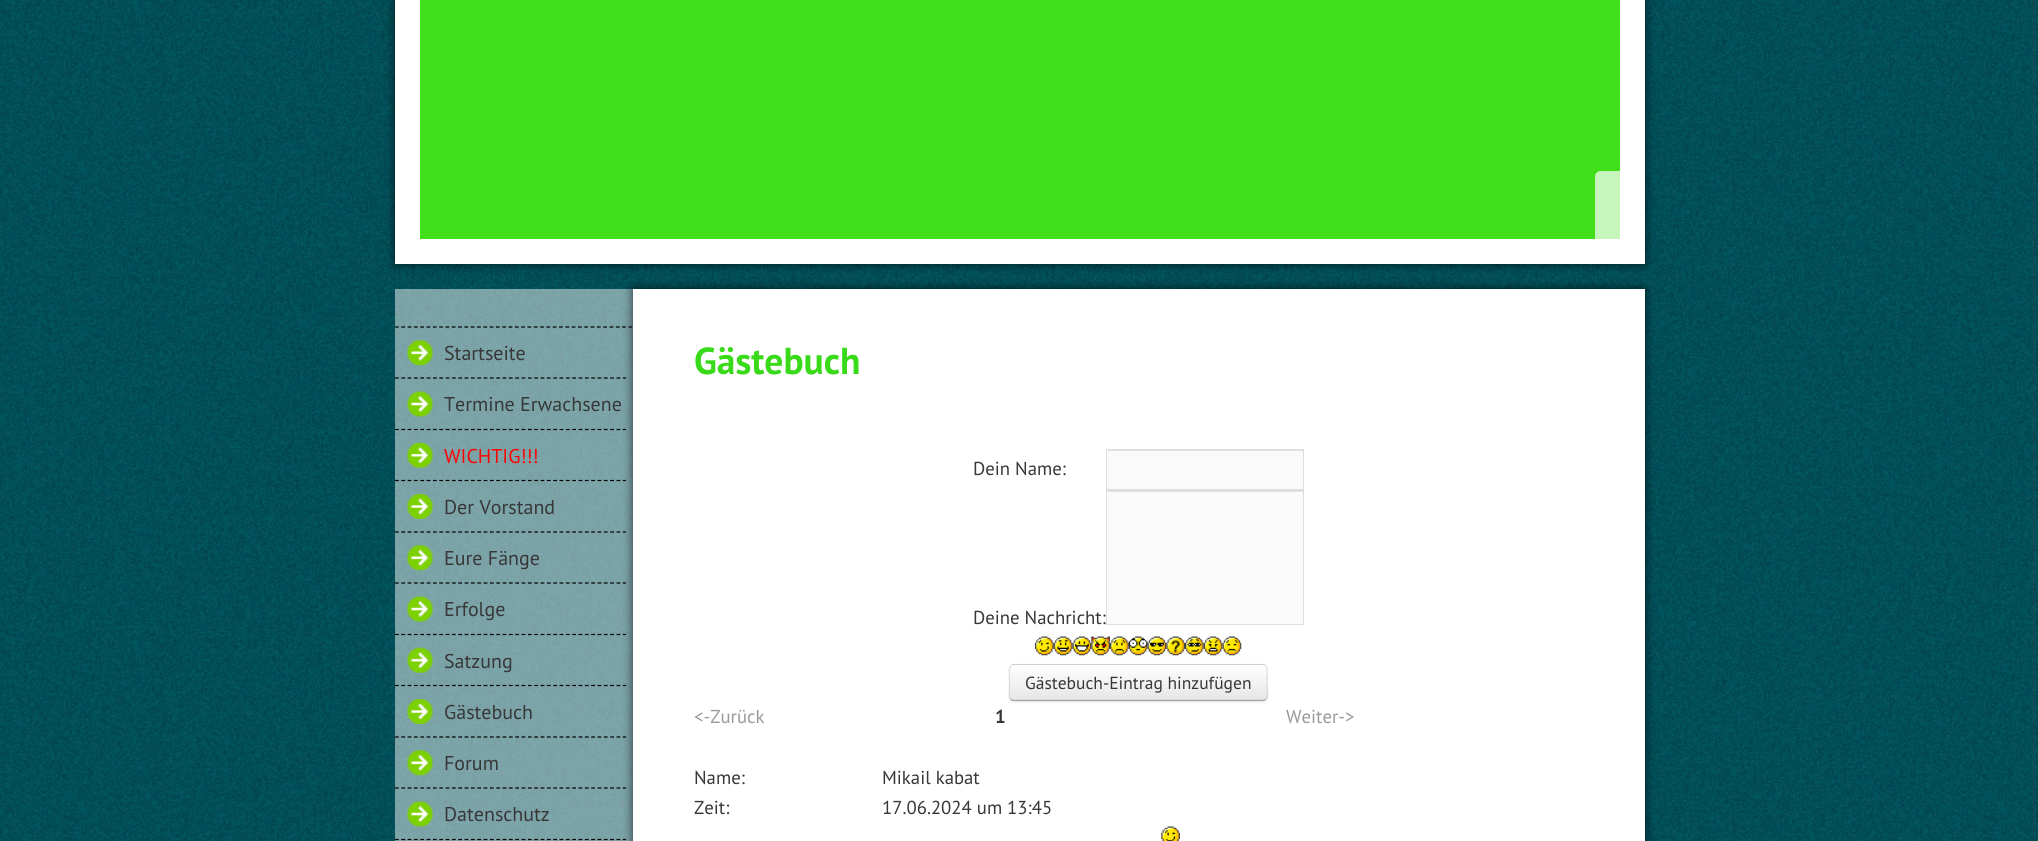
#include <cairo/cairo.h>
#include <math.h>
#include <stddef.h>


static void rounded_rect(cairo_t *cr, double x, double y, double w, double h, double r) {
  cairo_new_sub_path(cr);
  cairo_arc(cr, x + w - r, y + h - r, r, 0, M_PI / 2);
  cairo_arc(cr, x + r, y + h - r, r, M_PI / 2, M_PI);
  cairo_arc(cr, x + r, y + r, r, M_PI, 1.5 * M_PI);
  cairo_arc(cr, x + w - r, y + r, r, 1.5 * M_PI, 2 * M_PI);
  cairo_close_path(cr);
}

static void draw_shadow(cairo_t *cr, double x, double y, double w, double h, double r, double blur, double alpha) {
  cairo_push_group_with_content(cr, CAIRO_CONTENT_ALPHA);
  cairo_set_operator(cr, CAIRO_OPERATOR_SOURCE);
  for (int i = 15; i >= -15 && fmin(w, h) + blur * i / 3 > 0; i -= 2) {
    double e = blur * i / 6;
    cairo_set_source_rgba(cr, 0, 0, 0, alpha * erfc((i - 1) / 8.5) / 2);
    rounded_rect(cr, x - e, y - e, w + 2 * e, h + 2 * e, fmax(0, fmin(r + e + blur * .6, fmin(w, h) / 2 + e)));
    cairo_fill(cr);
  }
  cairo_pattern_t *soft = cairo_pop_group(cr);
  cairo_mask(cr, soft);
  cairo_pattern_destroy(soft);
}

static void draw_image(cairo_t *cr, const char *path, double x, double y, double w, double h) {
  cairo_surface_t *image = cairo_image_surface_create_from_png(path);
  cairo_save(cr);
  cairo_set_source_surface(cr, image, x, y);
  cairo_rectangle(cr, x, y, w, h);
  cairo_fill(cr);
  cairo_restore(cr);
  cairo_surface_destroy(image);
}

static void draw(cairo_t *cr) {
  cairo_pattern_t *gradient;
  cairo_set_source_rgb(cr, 1, 1, 1);
  cairo_paint(cr);
  draw_image(cr, "images/1.png", 0, 0, 2038, 841);
  cairo_set_source_rgb(cr, 0, 0, 0);
  draw_shadow(cr, 395, -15, 1250, 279, 0, 5, 0.7);
  cairo_set_source_rgb(cr, 1, 1, 1);
  cairo_rectangle(cr, 395, 0, 1250, 264);
  cairo_fill(cr);
  cairo_set_source_rgb(cr, 66 / 255.0, 224 / 255.0, 27 / 255.0);
  cairo_rectangle(cr, 420, 0, 1200, 239);
  cairo_fill(cr);
  cairo_set_source_rgb(cr, 198 / 255.0, 246 / 255.0, 187 / 255.0);
  cairo_new_path(cr);
  cairo_move_to(cr, 1601, 171);
  cairo_line_to(cr, 1620, 171);
  cairo_line_to(cr, 1620, 239);
  cairo_line_to(cr, 1595, 239);
  cairo_line_to(cr, 1595, 177);
  cairo_curve_to(cr, 1595, 173.5, 1597.5, 171, 1601, 171);
  cairo_close_path(cr);
  cairo_fill(cr);
  cairo_set_source_rgba(cr, 1, 1, 1, 0.48);
  cairo_rectangle(cr, 395, 289, 238, 552);
  cairo_fill(cr);
  cairo_new_path(cr);
  cairo_move_to(cr, 395, 327);
  cairo_line_to(cr, 632.5, 327);
  cairo_set_source_rgb(cr, 0, 0, 0);
  cairo_set_line_width(cr, 1.2);
  cairo_set_dash(cr, (double[]){3.75, 2.56}, 2, 0);
  cairo_stroke(cr);
  cairo_set_source_rgb(cr, 0, 0, 0);
  draw_shadow(cr, 633, 289, 1012, 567, 0, 5, 0.7);
  cairo_new_path(cr);
  cairo_move_to(cr, 395, 378);
  cairo_line_to(cr, 626, 378);
  cairo_set_source_rgb(cr, 0, 0, 0);
  cairo_set_dash(cr, (double[]){3.75, 2.58}, 2, 0);
  cairo_stroke(cr);
  draw_image(cr, "images/2.png", 407, 340, 26, 26);
  cairo_new_path(cr);
  cairo_move_to(cr, 395, 429.5);
  cairo_line_to(cr, 626, 429.5);
  cairo_stroke(cr);
  draw_image(cr, "images/3.png", 407, 391, 26, 26);
  cairo_new_path(cr);
  cairo_move_to(cr, 395, 480.5);
  cairo_line_to(cr, 626, 480.5);
  cairo_stroke(cr);
  draw_image(cr, "images/4.png", 407, 442, 26, 26);
  cairo_new_path(cr);
  cairo_move_to(cr, 395, 532);
  cairo_line_to(cr, 626, 532);
  cairo_stroke(cr);
  draw_image(cr, "images/5.png", 407, 494, 26, 25);
  cairo_new_path(cr);
  cairo_move_to(cr, 395, 583);
  cairo_line_to(cr, 626, 583);
  cairo_stroke(cr);
  draw_image(cr, "images/6.png", 407, 545, 26, 26);
  cairo_new_path(cr);
  cairo_move_to(cr, 395, 634.5);
  cairo_line_to(cr, 626, 634.5);
  cairo_stroke(cr);
  draw_image(cr, "images/7.png", 407, 596, 26, 26);
  cairo_new_path(cr);
  cairo_move_to(cr, 395, 685.5);
  cairo_line_to(cr, 626, 685.5);
  cairo_stroke(cr);
  draw_image(cr, "images/8.png", 407, 647, 26, 26);
  cairo_new_path(cr);
  cairo_move_to(cr, 395, 737);
  cairo_line_to(cr, 626, 737);
  cairo_stroke(cr);
  draw_image(cr, "images/9.png", 407, 699, 26, 25);
  cairo_new_path(cr);
  cairo_move_to(cr, 395, 788);
  cairo_line_to(cr, 626, 788);
  cairo_stroke(cr);
  draw_image(cr, "images/10.png", 407, 750, 26, 26);
  cairo_new_path(cr);
  cairo_move_to(cr, 395, 839.5);
  cairo_line_to(cr, 626, 839.5);
  cairo_stroke(cr);
  draw_image(cr, "images/11.png", 407, 801, 26, 26);
  cairo_set_source_rgb(cr, 1, 1, 1);
  cairo_rectangle(cr, 633, 289, 1012, 552);
  cairo_fill(cr);
  cairo_set_source_rgb(cr, 250 / 255.0, 250 / 255.0, 250 / 255.0);
  cairo_rectangle(cr, 1107, 450, 196, 39);
  cairo_fill(cr);
  cairo_set_source_rgb(cr, 225 / 255.0, 225 / 255.0, 225 / 255.0);
  cairo_rectangle(cr, 1108, 450, 195, 1);
  cairo_fill(cr);
  cairo_rectangle(cr, 1106.5, 449.5, 197, 40);
  cairo_set_source_rgb(cr, 221 / 255.0, 221 / 255.0, 221 / 255.0);
  cairo_set_line_width(cr, 1);
  cairo_set_dash(cr, NULL, 0, 0);
  cairo_stroke(cr);
  cairo_set_source_rgb(cr, 250 / 255.0, 250 / 255.0, 250 / 255.0);
  cairo_rectangle(cr, 1107, 491, 196, 133);
  cairo_fill(cr);
  cairo_set_source_rgb(cr, 225 / 255.0, 225 / 255.0, 225 / 255.0);
  cairo_rectangle(cr, 1108, 491, 195, 1);
  cairo_fill(cr);
  cairo_rectangle(cr, 1106.5, 490.5, 197, 134);
  cairo_set_source_rgb(cr, 221 / 255.0, 221 / 255.0, 221 / 255.0);
  cairo_stroke(cr);
  draw_image(cr, "images/12.png", 1035, 636, 19, 20);
  draw_image(cr, "images/13.png", 1053, 636, 20, 20);
  draw_image(cr, "images/14.png", 1072, 636, 20, 20);
  draw_image(cr, "images/15.png", 1091, 636, 19, 20);
  draw_image(cr, "images/16.png", 1110, 636, 19, 20);
  draw_image(cr, "images/17.png", 1128, 636, 20, 20);
  draw_image(cr, "images/18.png", 1147, 636, 20, 20);
  draw_image(cr, "images/19.png", 1166, 636, 19, 20);
  draw_image(cr, "images/20.png", 1185, 636, 19, 20);
  draw_image(cr, "images/21.png", 1203, 636, 20, 20);
  draw_image(cr, "images/22.png", 1222, 636, 20, 20);
  cairo_set_source_rgb(cr, 0, 0, 0);
  draw_shadow(cr, 1009, 665, 259, 38, 5, 1, 0.05);
  cairo_set_source_rgb(cr, 230 / 255.0, 230 / 255.0, 230 / 255.0);
  rounded_rect(cr, 1009, 664, 259, 37, 5);
  cairo_fill(cr);
  cairo_save(cr);
  rounded_rect(cr, 1009, 664, 259, 37, 5);
  cairo_clip(cr);
  gradient = cairo_pattern_create_linear(1138, 665, 1138, 700);
  cairo_pattern_add_color_stop_rgba(gradient, 0, 1, 1, 1, 1);
  cairo_pattern_add_color_stop_rgba(gradient, 1, 230 / 255.0, 230 / 255.0, 230 / 255.0, 1);
  cairo_set_source(cr, gradient);
  cairo_pattern_destroy(gradient);
  cairo_rectangle(cr, 1009, 665, 259, 35);
  cairo_fill(cr);
  cairo_restore(cr);
  cairo_new_path(cr);
  cairo_move_to(cr, 1265.5, 699.5);
  cairo_curve_to(cr, 1265, 700, 1263.5, 700.5, 1262.5, 700.5);
  cairo_line_to(cr, 1014, 700.5);
  cairo_curve_to(cr, 1012.5, 700.5, 1011.5, 700, 1010.5, 699.5);
  cairo_set_source_rgb(cr, 162 / 255.0, 162 / 255.0, 162 / 255.0);
  cairo_set_line_width(cr, 1.2);
  cairo_stroke(cr);
  cairo_new_path(cr);
  cairo_move_to(cr, 1010.5, 699.5);
  cairo_curve_to(cr, 1008, 696.5, 1009.5, 690, 1009.5, 687);
  cairo_line_to(cr, 1009.5, 678);
  cairo_curve_to(cr, 1009.5, 674.5, 1007.5, 664.5, 1014, 664.5);
  cairo_line_to(cr, 1262.5, 664.5);
  cairo_curve_to(cr, 1269, 664.5, 1267, 674.5, 1267, 678);
  cairo_line_to(cr, 1267, 687);
  cairo_curve_to(cr, 1267, 690, 1268.5, 696.5, 1265.5, 699.5);
  cairo_set_source_rgba(cr, 0, 0, 0, 0.1);
  cairo_stroke(cr);
  draw_image(cr, "images/23.png", 1161, 826, 19, 15);
  cairo_select_font_face(cr, "PT Sans", CAIRO_FONT_SLANT_NORMAL, CAIRO_FONT_WEIGHT_NORMAL);
  cairo_set_font_size(cr, 20);
  cairo_set_source_rgb(cr, 55 / 255.0, 55 / 255.0, 55 / 255.0);
  cairo_move_to(cr, 444, 360);
  cairo_show_text(cr, "Startseite");
  cairo_move_to(cr, 444, 411);
  cairo_show_text(cr, "Termine Erwachsene");
  cairo_set_source_rgb(cr, 250 / 255.0, 5 / 255.0, 5 / 255.0);
  cairo_move_to(cr, 444, 463);
  cairo_show_text(cr, "WICHTIG!!!");
  cairo_set_source_rgb(cr, 55 / 255.0, 55 / 255.0, 55 / 255.0);
  cairo_move_to(cr, 444, 514);
  cairo_show_text(cr, "Der Vorstand");
  cairo_move_to(cr, 444, 565);
  cairo_show_text(cr, "Eure Fänge");
  cairo_move_to(cr, 444, 616);
  cairo_show_text(cr, "Erfolge");
  cairo_move_to(cr, 444, 668);
  cairo_show_text(cr, "Satzung");
  cairo_move_to(cr, 444, 719);
  cairo_show_text(cr, "Gästebuch");
  cairo_move_to(cr, 444, 770);
  cairo_show_text(cr, "Forum");
  cairo_move_to(cr, 444, 821);
  cairo_show_text(cr, "Datenschutz");
  cairo_select_font_face(cr, "PT Sans", CAIRO_FONT_SLANT_NORMAL, CAIRO_FONT_WEIGHT_BOLD);
  cairo_set_font_size(cr, 37.5);
  cairo_set_source_rgb(cr, 57 / 255.0, 218 / 255.0, 25 / 255.0);
  cairo_move_to(cr, 694, 374);
  cairo_show_text(cr, "Gästebuch");
  cairo_select_font_face(cr, "PT Sans", CAIRO_FONT_SLANT_NORMAL, CAIRO_FONT_WEIGHT_NORMAL);
  cairo_set_font_size(cr, 18.75);
  cairo_set_source_rgb(cr, 55 / 255.0, 55 / 255.0, 55 / 255.0);
  cairo_move_to(cr, 973, 475);
  cairo_show_text(cr, "Dein Name:");
  cairo_move_to(cr, 973, 624);
  cairo_show_text(cr, "Deine Nachricht:");
  cairo_set_font_size(cr, 17.5);
  cairo_move_to(cr, 1025, 689);
  cairo_show_text(cr, "Gästebuch-Eintrag hinzufügen");
  cairo_set_font_size(cr, 18.75);
  cairo_set_source_rgb(cr, 153 / 255.0, 153 / 255.0, 153 / 255.0);
  cairo_move_to(cr, 694, 723);
  cairo_show_text(cr, "<-Zurück");
  cairo_select_font_face(cr, "PT Sans", CAIRO_FONT_SLANT_NORMAL, CAIRO_FONT_WEIGHT_BOLD);
  cairo_set_source_rgb(cr, 55 / 255.0, 55 / 255.0, 55 / 255.0);
  cairo_move_to(cr, 995, 723);
  cairo_show_text(cr, "1");
  cairo_select_font_face(cr, "PT Sans", CAIRO_FONT_SLANT_NORMAL, CAIRO_FONT_WEIGHT_NORMAL);
  cairo_set_source_rgb(cr, 153 / 255.0, 153 / 255.0, 153 / 255.0);
  cairo_move_to(cr, 1286, 723);
  cairo_show_text(cr, "Weiter->");
  cairo_set_source_rgb(cr, 55 / 255.0, 55 / 255.0, 55 / 255.0);
  cairo_move_to(cr, 694, 784);
  cairo_show_text(cr, "Name:");
  cairo_move_to(cr, 882, 784);
  cairo_show_text(cr, "Mikail kabat");
  cairo_move_to(cr, 694, 814);
  cairo_show_text(cr, "Zeit:");
  cairo_move_to(cr, 882, 814);
  cairo_show_text(cr, "17.06.2024 um 13:45");
}

int main(void) {
  cairo_surface_t *surface = cairo_image_surface_create(CAIRO_FORMAT_RGB24, 2038, 841);
  cairo_t *cr = cairo_create(surface);
  cairo_font_options_t *options = cairo_font_options_create();
  cairo_font_options_set_hint_metrics(options, CAIRO_HINT_METRICS_OFF);
  cairo_font_options_set_hint_style(options, CAIRO_HINT_STYLE_NONE);
  cairo_set_font_options(cr, options);
  cairo_set_miter_limit(cr, 4);
  draw(cr);
  cairo_surface_write_to_png(surface, "out.png");
  cairo_font_options_destroy(options);
  cairo_destroy(cr);
  cairo_surface_destroy(surface);
  return 0;
}
